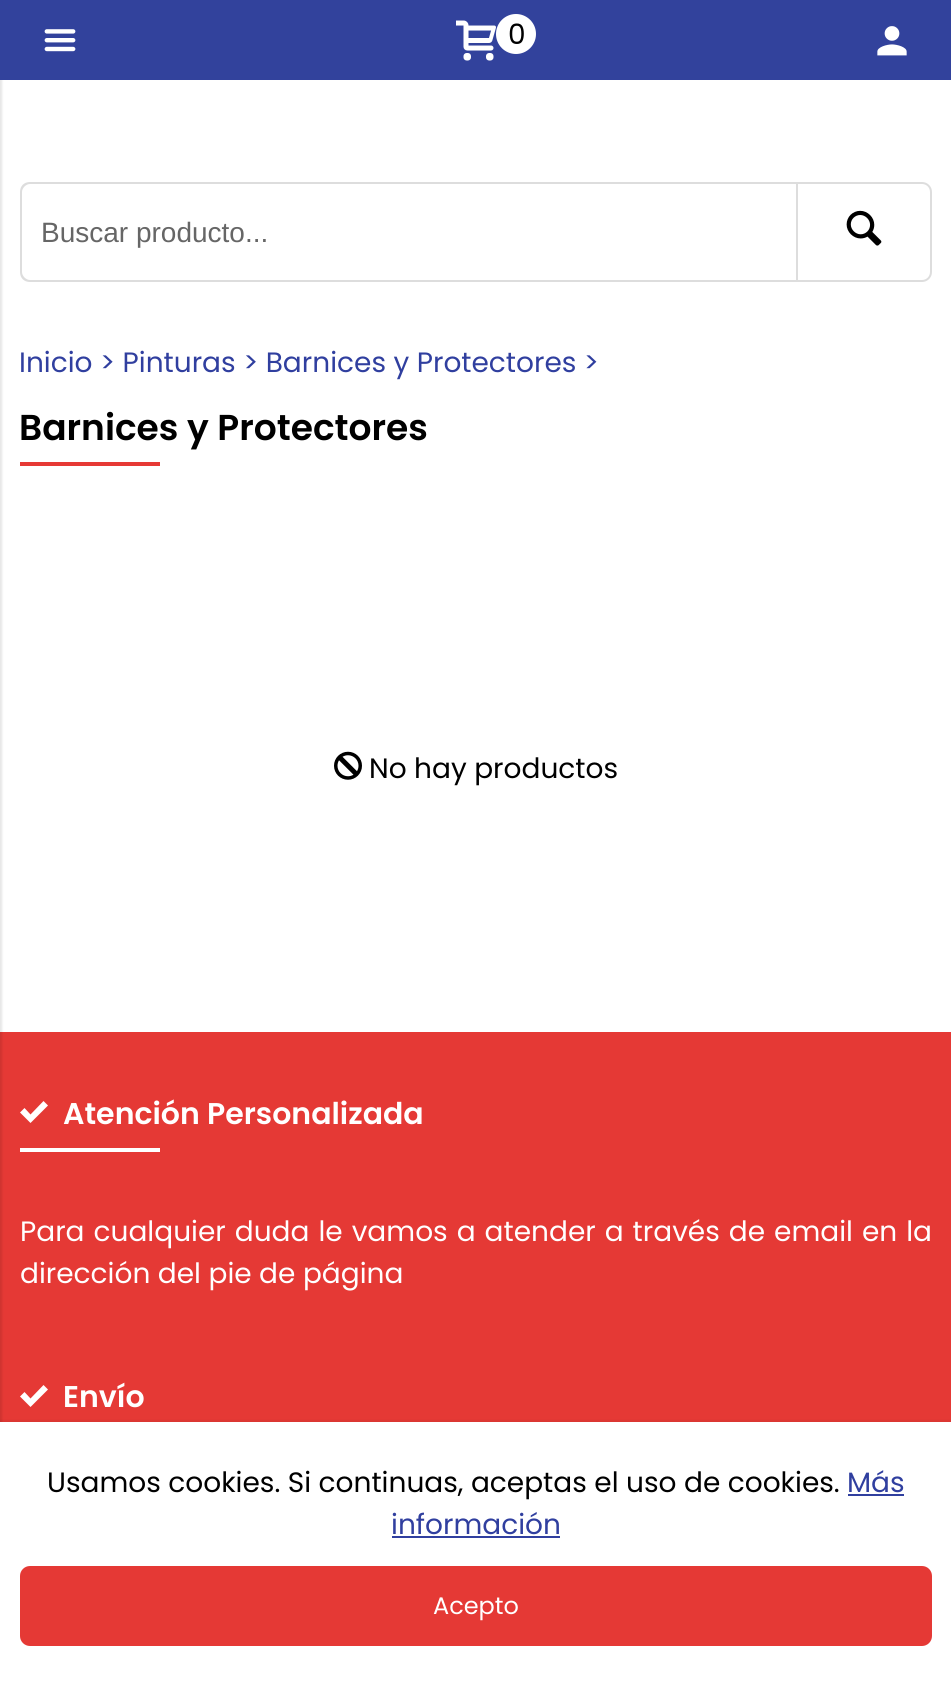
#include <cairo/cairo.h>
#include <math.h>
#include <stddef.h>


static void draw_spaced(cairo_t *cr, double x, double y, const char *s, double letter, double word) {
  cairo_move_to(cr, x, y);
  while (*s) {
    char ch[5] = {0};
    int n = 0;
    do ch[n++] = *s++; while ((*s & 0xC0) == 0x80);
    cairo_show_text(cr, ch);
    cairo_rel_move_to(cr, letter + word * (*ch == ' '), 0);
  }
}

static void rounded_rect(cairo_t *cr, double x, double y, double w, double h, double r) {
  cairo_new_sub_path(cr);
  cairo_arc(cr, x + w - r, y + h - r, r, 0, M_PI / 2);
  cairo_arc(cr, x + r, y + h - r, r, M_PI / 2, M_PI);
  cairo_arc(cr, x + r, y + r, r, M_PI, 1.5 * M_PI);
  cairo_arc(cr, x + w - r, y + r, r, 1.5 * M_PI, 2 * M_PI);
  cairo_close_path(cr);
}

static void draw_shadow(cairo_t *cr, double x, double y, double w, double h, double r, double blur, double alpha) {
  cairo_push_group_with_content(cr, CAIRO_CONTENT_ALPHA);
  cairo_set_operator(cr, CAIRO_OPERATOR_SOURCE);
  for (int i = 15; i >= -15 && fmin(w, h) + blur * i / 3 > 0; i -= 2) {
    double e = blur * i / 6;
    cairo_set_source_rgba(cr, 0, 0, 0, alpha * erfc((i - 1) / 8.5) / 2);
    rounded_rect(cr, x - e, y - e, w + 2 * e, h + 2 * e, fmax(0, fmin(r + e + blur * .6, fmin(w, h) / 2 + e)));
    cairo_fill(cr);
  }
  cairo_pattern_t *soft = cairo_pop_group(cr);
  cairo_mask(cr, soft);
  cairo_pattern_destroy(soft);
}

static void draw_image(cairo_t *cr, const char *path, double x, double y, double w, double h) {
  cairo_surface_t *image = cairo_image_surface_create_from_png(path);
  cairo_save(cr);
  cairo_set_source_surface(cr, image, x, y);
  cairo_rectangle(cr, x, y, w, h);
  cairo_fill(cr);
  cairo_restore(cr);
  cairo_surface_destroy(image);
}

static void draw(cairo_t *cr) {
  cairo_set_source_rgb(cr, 1, 1, 1);
  cairo_paint(cr);
  cairo_set_source_rgb(cr, 229 / 255.0, 57 / 255.0, 53 / 255.0);
  cairo_rectangle(cr, 0, 1032, 951, 390);
  cairo_fill(cr);
  cairo_set_source_rgb(cr, 0, 0, 0);
  draw_shadow(cr, -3, 2, 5, 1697, 0, 1, 0.1);
  cairo_set_source_rgb(cr, 50 / 255.0, 66 / 255.0, 156 / 255.0);
  cairo_rectangle(cr, 0, 0, 951, 80);
  cairo_fill(cr);
  draw_image(cr, "images/1.png", 44, 29, 32, 23);
  draw_image(cr, "images/2.png", 456, 20, 40, 41);
  cairo_set_source_rgb(cr, 1, 1, 1);
  cairo_arc(cr, 516, 34, 20, 0, 2 * M_PI);
  cairo_fill(cr);
  draw_image(cr, "images/3.png", 877, 26, 30, 30);
  cairo_set_source_rgb(cr, 221 / 255.0, 221 / 255.0, 221 / 255.0);
  cairo_set_fill_rule(cr, CAIRO_FILL_RULE_EVEN_ODD);
  cairo_new_path(cr);
  cairo_move_to(cr, 30, 182);
  cairo_line_to(cr, 796, 182);
  cairo_line_to(cr, 796, 282);
  cairo_line_to(cr, 30, 282);
  cairo_curve_to(cr, 24, 282, 20, 278, 20, 272);
  cairo_line_to(cr, 20, 192);
  cairo_curve_to(cr, 20, 186, 24, 182, 30, 182);
  cairo_close_path(cr);
  cairo_move_to(cr, 30, 184);
  cairo_line_to(cr, 796, 184);
  cairo_line_to(cr, 796, 280);
  cairo_line_to(cr, 30, 280);
  cairo_curve_to(cr, 26, 280, 22, 276, 22, 272);
  cairo_line_to(cr, 22, 192);
  cairo_curve_to(cr, 22, 188, 26, 184, 30, 184);
  cairo_close_path(cr);
  cairo_fill(cr);
  cairo_new_path(cr);
  cairo_move_to(cr, 797, 183);
  cairo_line_to(cr, 922, 183);
  cairo_curve_to(cr, 927, 183, 931, 187, 931, 192);
  cairo_line_to(cr, 931, 272);
  cairo_curve_to(cr, 931, 277, 927, 281, 922, 281);
  cairo_line_to(cr, 797, 281);
  cairo_close_path(cr);
  cairo_stroke(cr);
  draw_image(cr, "images/4.png", 846, 210, 36, 36);
  cairo_set_source_rgb(cr, 230 / 255.0, 57 / 255.0, 53 / 255.0);
  cairo_rectangle(cr, 20, 462, 140, 4);
  cairo_fill(cr);
  draw_image(cr, "images/5.png", 334, 751, 28, 29);
  cairo_set_source_rgb(cr, 0, 0, 0);
  draw_shadow(cr, -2, 1420, 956, 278, 0, 1, 0.05);
  cairo_set_source_rgb(cr, 1, 1, 1);
  cairo_rectangle(cr, 0, 1422, 951, 274);
  cairo_fill(cr);
  cairo_set_source_rgb(cr, 48 / 255.0, 63 / 255.0, 159 / 255.0);
  cairo_rectangle(cr, 848, 1494, 56, 2);
  cairo_fill(cr);
  cairo_rectangle(cr, 392, 1536, 168, 2);
  cairo_fill(cr);
  cairo_set_source_rgb(cr, 229 / 255.0, 57 / 255.0, 53 / 255.0);
  rounded_rect(cr, 21, 1567, 910, 78, 9);
  cairo_fill_preserve(cr);
  cairo_stroke(cr);
  cairo_set_source_rgb(cr, 1, 1, 1);
  cairo_set_fill_rule(cr, CAIRO_FILL_RULE_WINDING);
  cairo_new_path(cr);
  cairo_move_to(cr, 43.5, 1101);
  cairo_line_to(cr, 30.5, 1114.5);
  cairo_line_to(cr, 24.5, 1108);
  cairo_line_to(cr, 20, 1112.5);
  cairo_line_to(cr, 30.5, 1123);
  cairo_line_to(cr, 48, 1105.5);
  cairo_close_path(cr);
  cairo_fill(cr);
  cairo_rectangle(cr, 20, 1148, 140, 4);
  cairo_fill(cr);
  cairo_new_path(cr);
  cairo_move_to(cr, 43.5, 1385);
  cairo_line_to(cr, 30.5, 1398.5);
  cairo_line_to(cr, 24.5, 1392);
  cairo_line_to(cr, 20, 1396.5);
  cairo_line_to(cr, 30.5, 1407);
  cairo_line_to(cr, 48, 1389.5);
  cairo_close_path(cr);
  cairo_fill(cr);
  cairo_select_font_face(cr, "Poppins", CAIRO_FONT_SLANT_NORMAL, CAIRO_FONT_WEIGHT_NORMAL);
  cairo_set_font_size(cr, 28);
  cairo_set_source_rgb(cr, 0, 0, 0);
  draw_spaced(cr, 508, 44, "0", -1, 0);
  cairo_select_font_face(cr, "Liberation Sans", CAIRO_FONT_SLANT_NORMAL, CAIRO_FONT_WEIGHT_NORMAL);
  cairo_set_source_rgb(cr, 102 / 255.0, 102 / 255.0, 102 / 255.0);
  cairo_move_to(cr, 41, 242);
  cairo_show_text(cr, "Buscar producto...");
  cairo_select_font_face(cr, "Poppins", CAIRO_FONT_SLANT_NORMAL, CAIRO_FONT_WEIGHT_NORMAL);
  cairo_set_source_rgb(cr, 48 / 255.0, 63 / 255.0, 159 / 255.0);
  cairo_move_to(cr, 19, 372);
  cairo_show_text(cr, "Inicio > Pinturas > Barnices y Protectores >");
  cairo_select_font_face(cr, "Poppins SemiBold", CAIRO_FONT_SLANT_NORMAL, CAIRO_FONT_WEIGHT_NORMAL);
  cairo_set_font_size(cr, 36);
  cairo_set_source_rgb(cr, 0, 0, 0);
  cairo_move_to(cr, 19, 440);
  cairo_show_text(cr, "Barnices y Protectores");
  cairo_select_font_face(cr, "Poppins", CAIRO_FONT_SLANT_NORMAL, CAIRO_FONT_WEIGHT_NORMAL);
  cairo_set_font_size(cr, 28);
  cairo_move_to(cr, 369, 778);
  cairo_show_text(cr, "No hay productos");
  cairo_move_to(cr, 47, 1492);
  cairo_show_text(cr, "Usamos cookies. Si continuas, aceptas el uso de cookies.");
  cairo_set_source_rgb(cr, 48 / 255.0, 63 / 255.0, 159 / 255.0);
  cairo_move_to(cr, 847, 1492);
  cairo_show_text(cr, "Más");
  cairo_move_to(cr, 391, 1534);
  cairo_show_text(cr, "información");
  cairo_set_font_size(cr, 24);
  cairo_set_source_rgb(cr, 1, 1, 1);
  cairo_move_to(cr, 433, 1614);
  cairo_show_text(cr, "Acepto");
  cairo_select_font_face(cr, "Poppins SemiBold", CAIRO_FONT_SLANT_NORMAL, CAIRO_FONT_WEIGHT_NORMAL);
  cairo_set_font_size(cr, 30);
  cairo_move_to(cr, 63, 1124);
  cairo_show_text(cr, "Atención Personalizada");
  cairo_select_font_face(cr, "Poppins", CAIRO_FONT_SLANT_NORMAL, CAIRO_FONT_WEIGHT_NORMAL);
  cairo_set_font_size(cr, 28);
  draw_spaced(cr, 20, 1241, "Para cualquier duda le vamos a atender a través de email en la", 0, 1.5);
  cairo_move_to(cr, 20, 1283);
  cairo_show_text(cr, "dirección del pie de página");
  cairo_select_font_face(cr, "Poppins SemiBold", CAIRO_FONT_SLANT_NORMAL, CAIRO_FONT_WEIGHT_NORMAL);
  cairo_set_font_size(cr, 30);
  cairo_move_to(cr, 63, 1407);
  cairo_show_text(cr, "Envío");
}

int main(void) {
  cairo_surface_t *surface = cairo_image_surface_create(CAIRO_FORMAT_RGB24, 951, 1696);
  cairo_t *cr = cairo_create(surface);
  cairo_font_options_t *options = cairo_font_options_create();
  cairo_font_options_set_hint_metrics(options, CAIRO_HINT_METRICS_OFF);
  cairo_font_options_set_hint_style(options, CAIRO_HINT_STYLE_NONE);
  cairo_set_font_options(cr, options);
  cairo_set_miter_limit(cr, 4);
  draw(cr);
  cairo_surface_write_to_png(surface, "out.png");
  cairo_font_options_destroy(options);
  cairo_destroy(cr);
  cairo_surface_destroy(surface);
  return 0;
}
